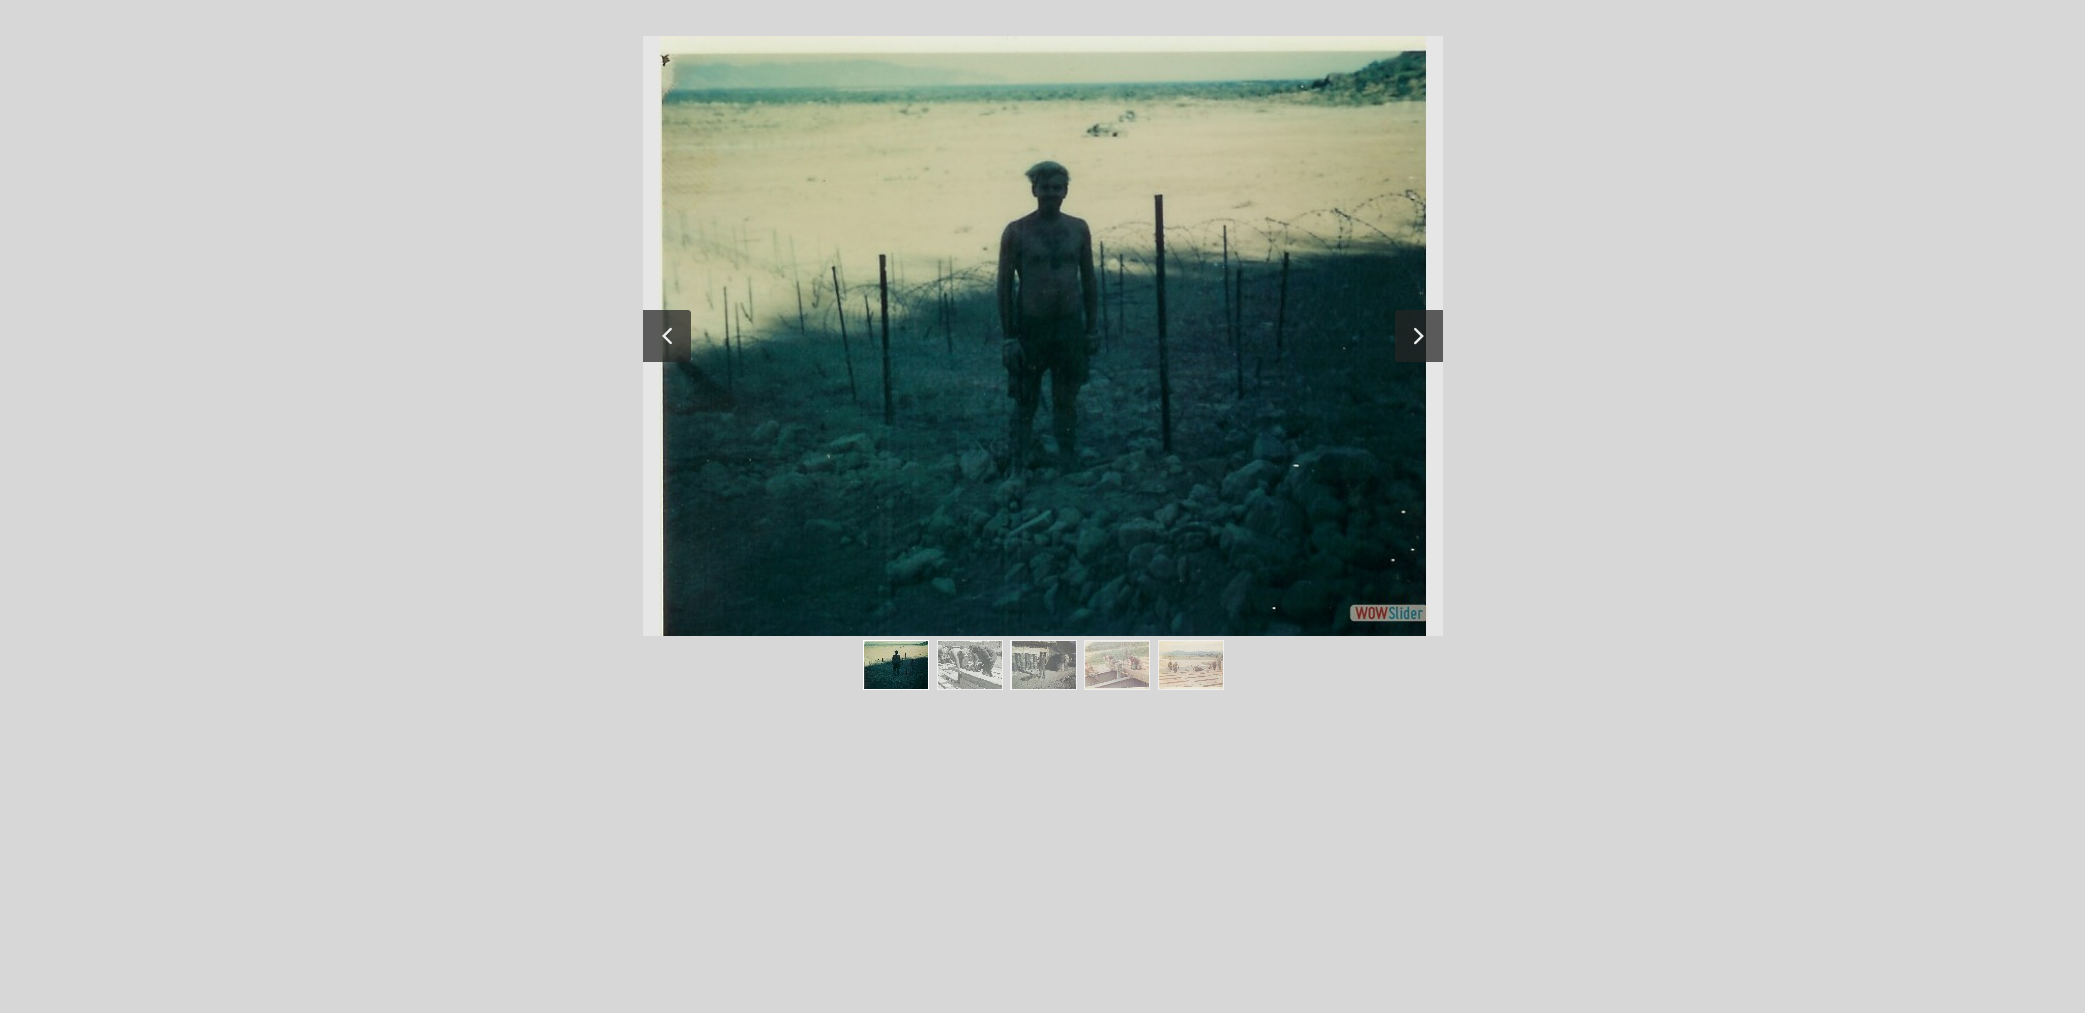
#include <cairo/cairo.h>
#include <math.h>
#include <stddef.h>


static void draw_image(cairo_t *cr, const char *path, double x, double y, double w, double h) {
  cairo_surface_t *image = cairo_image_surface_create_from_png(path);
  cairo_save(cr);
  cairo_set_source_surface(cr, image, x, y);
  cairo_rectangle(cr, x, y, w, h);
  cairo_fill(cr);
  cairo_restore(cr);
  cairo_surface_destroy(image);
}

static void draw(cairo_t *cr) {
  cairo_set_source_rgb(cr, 215 / 255.0, 215 / 255.0, 215 / 255.0);
  cairo_paint(cr);
  draw_image(cr, "images/1.png", 643, 36, 800, 600);
  cairo_set_source_rgba(cr, 37 / 255.0, 37 / 255.0, 37 / 255.0, 0.72);
  cairo_new_path(cr);
  cairo_move_to(cr, 643, 310);
  cairo_line_to(cr, 688, 310);
  cairo_curve_to(cr, 689.5, 310, 691, 311.5, 691, 313);
  cairo_line_to(cr, 691, 359);
  cairo_curve_to(cr, 691, 360.5, 689.5, 362, 688, 362);
  cairo_line_to(cr, 643, 362);
  cairo_close_path(cr);
  cairo_fill(cr);
  draw_image(cr, "images/2.png", 662, 327, 10, 18);
  cairo_new_path(cr);
  cairo_move_to(cr, 1398, 310);
  cairo_line_to(cr, 1443, 310);
  cairo_line_to(cr, 1443, 362);
  cairo_line_to(cr, 1398, 362);
  cairo_curve_to(cr, 1396.5, 362, 1395, 360.5, 1395, 359);
  cairo_line_to(cr, 1395, 313);
  cairo_curve_to(cr, 1395, 311.5, 1396.5, 310, 1398, 310);
  cairo_close_path(cr);
  cairo_fill(cr);
  draw_image(cr, "images/3.png", 1414, 327, 10, 18);
  cairo_set_source_rgb(cr, 1, 1, 1);
  cairo_rectangle(cr, 863, 640, 66, 50);
  cairo_fill(cr);
  draw_image(cr, "images/4.png", 864, 641, 64, 48);
  cairo_set_source_rgb(cr, 239 / 255.0, 239 / 255.0, 239 / 255.0);
  cairo_rectangle(cr, 937, 640, 66, 50);
  cairo_fill(cr);
  draw_image(cr, "images/5.png", 938, 641, 64, 48);
  cairo_rectangle(cr, 1010, 640, 67, 50);
  cairo_fill(cr);
  draw_image(cr, "images/6.png", 1012, 641, 64, 48);
  cairo_rectangle(cr, 1084, 640, 66, 50);
  cairo_fill(cr);
  draw_image(cr, "images/7.png", 1085, 641, 64, 48);
  cairo_rectangle(cr, 1158, 640, 66, 50);
  cairo_fill(cr);
  draw_image(cr, "images/8.png", 1159, 641, 64, 48);
}

int main(void) {
  cairo_surface_t *surface = cairo_image_surface_create(CAIRO_FORMAT_RGB24, 2085, 1013);
  cairo_t *cr = cairo_create(surface);
  cairo_font_options_t *options = cairo_font_options_create();
  cairo_font_options_set_hint_metrics(options, CAIRO_HINT_METRICS_OFF);
  cairo_font_options_set_hint_style(options, CAIRO_HINT_STYLE_NONE);
  cairo_set_font_options(cr, options);
  cairo_set_miter_limit(cr, 4);
  draw(cr);
  cairo_surface_write_to_png(surface, "out.png");
  cairo_font_options_destroy(options);
  cairo_destroy(cr);
  cairo_surface_destroy(surface);
  return 0;
}
